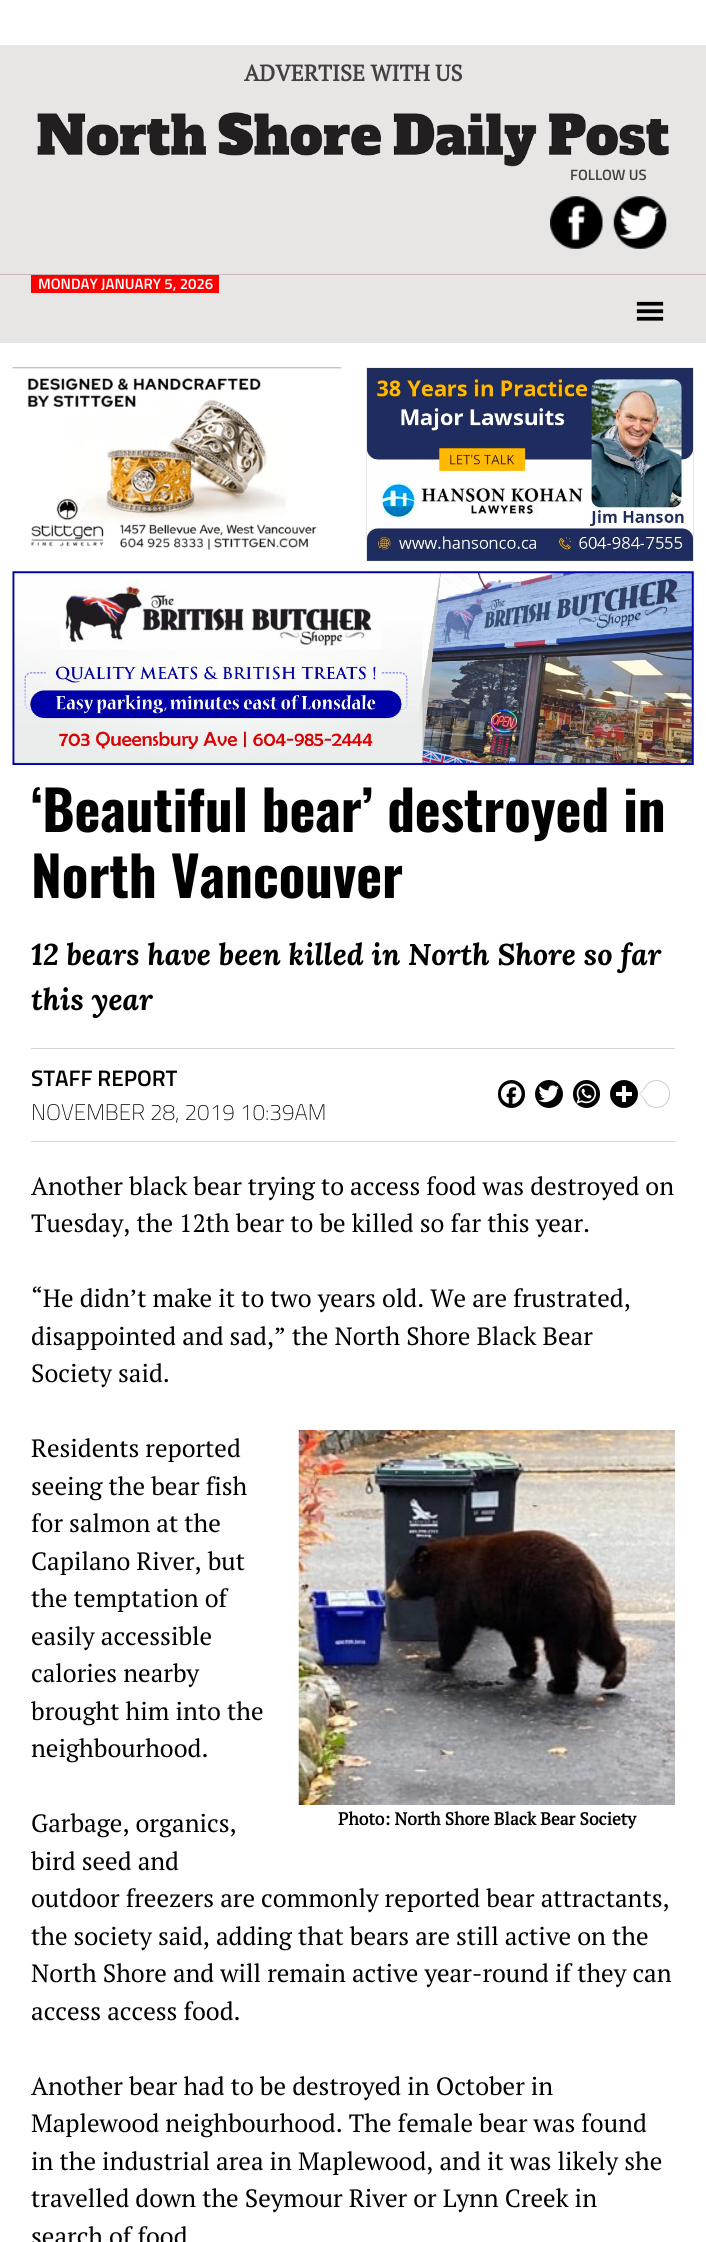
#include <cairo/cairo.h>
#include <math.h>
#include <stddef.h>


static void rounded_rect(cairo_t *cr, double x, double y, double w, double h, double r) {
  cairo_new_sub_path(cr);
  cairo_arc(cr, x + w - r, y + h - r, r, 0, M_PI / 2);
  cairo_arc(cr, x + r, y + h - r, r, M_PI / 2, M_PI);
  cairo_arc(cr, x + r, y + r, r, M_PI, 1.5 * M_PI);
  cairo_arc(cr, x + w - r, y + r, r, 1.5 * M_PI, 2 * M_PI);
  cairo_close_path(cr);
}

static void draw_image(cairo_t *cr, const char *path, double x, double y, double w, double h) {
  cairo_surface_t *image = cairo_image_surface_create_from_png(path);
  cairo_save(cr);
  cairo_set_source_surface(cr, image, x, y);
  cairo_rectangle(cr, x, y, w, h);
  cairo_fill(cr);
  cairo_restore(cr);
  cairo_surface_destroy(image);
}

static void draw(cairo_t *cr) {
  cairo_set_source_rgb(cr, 1, 1, 1);
  cairo_paint(cr);
  cairo_set_source_rgb(cr, 232 / 255.0, 229 / 255.0, 229 / 255.0);
  cairo_rectangle(cr, 0, 45, 706, 298);
  cairo_fill(cr);
  cairo_set_source_rgb(cr, 198 / 255.0, 184 / 255.0, 184 / 255.0);
  cairo_rectangle(cr, 0, 274, 706, 1);
  cairo_fill(cr);
  draw_image(cr, "images/1.png", 37, 112, 632, 55);
  draw_image(cr, "images/2.png", 550, 196, 53, 53);
  draw_image(cr, "images/3.png", 613, 196, 54, 53);
  cairo_set_source_rgb(cr, 1, 0, 0);
  cairo_rectangle(cr, 31, 275, 188, 18);
  cairo_fill(cr);
  draw_image(cr, "images/4.png", 636, 301, 28, 20);
  draw_image(cr, "images/5.png", 12, 367, 330, 183);
  draw_image(cr, "images/6.png", 366, 367, 328, 195);
  draw_image(cr, "images/7.png", 12, 571, 682, 194);
  cairo_set_source_rgb(cr, 213 / 255.0, 213 / 255.0, 213 / 255.0);
  cairo_rectangle(cr, 31, 1048, 644, 1);
  cairo_fill(cr);
  cairo_rectangle(cr, 31, 1141, 644, 1);
  cairo_fill(cr);
  cairo_set_source_rgb(cr, 0, 0, 0);
  rounded_rect(cr, 498, 1080, 27, 28, 13.5);
  cairo_fill(cr);
  draw_image(cr, "images/8.png", 500, 1083, 22, 21);
  cairo_arc(cr, 549, 1094, 14, 0, 2 * M_PI);
  cairo_fill(cr);
  draw_image(cr, "images/9.png", 538, 1085, 21, 18);
  rounded_rect(cr, 573, 1080, 27, 28, 13.5);
  cairo_fill(cr);
  draw_image(cr, "images/10.png", 576, 1083, 21, 21);
  cairo_arc(cr, 624, 1094, 14, 0, 2 * M_PI);
  cairo_fill(cr);
  cairo_set_source_rgb(cr, 1, 1, 1);
  cairo_rectangle(cr, 622, 1086, 4, 16);
  cairo_fill(cr);
  cairo_rectangle(cr, 616, 1092, 16, 4);
  cairo_fill(cr);
  rounded_rect(cr, 643.5, 1080.5, 26, 27, 13);
  cairo_set_source_rgb(cr, 204 / 255.0, 204 / 255.0, 204 / 255.0);
  cairo_set_line_width(cr, 1);
  cairo_stroke(cr);
  cairo_new_path(cr);
  cairo_move_to(cr, 644, 1089);
  cairo_line_to(cr, 644, 1099);
  cairo_line_to(cr, 639, 1094);
  cairo_close_path(cr);
  cairo_fill(cr);
  cairo_set_source_rgb(cr, 1, 1, 1);
  cairo_new_path(cr);
  cairo_move_to(cr, 645, 1089);
  cairo_line_to(cr, 645, 1099);
  cairo_line_to(cr, 640, 1094);
  cairo_close_path(cr);
  cairo_fill(cr);
  draw_image(cr, "images/11.png", 298, 1430, 377, 375);
  cairo_select_font_face(cr, "PT Serif", CAIRO_FONT_SLANT_NORMAL, CAIRO_FONT_WEIGHT_BOLD);
  cairo_set_font_size(cr, 22.5);
  cairo_set_source_rgb(cr, 65 / 255.0, 65 / 255.0, 65 / 255.0);
  cairo_move_to(cr, 244, 81);
  cairo_show_text(cr, "ADVERTISE WITH US");
  cairo_select_font_face(cr, "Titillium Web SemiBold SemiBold", CAIRO_FONT_SLANT_NORMAL, CAIRO_FONT_WEIGHT_NORMAL);
  cairo_set_font_size(cr, 15);
  cairo_move_to(cr, 570, 180);
  cairo_show_text(cr, "FOLLOW US");
  cairo_set_source_rgb(cr, 1, 1, 1);
  cairo_move_to(cr, 38, 289);
  cairo_show_text(cr, "MONDAY JANUARY 5, 2026");
  cairo_select_font_face(cr, "Oswald", CAIRO_FONT_SLANT_NORMAL, CAIRO_FONT_WEIGHT_BOLD);
  cairo_set_font_size(cr, 55);
  cairo_set_source_rgb(cr, 0, 0, 0);
  cairo_move_to(cr, 31, 832);
  cairo_show_text(cr, "‘Beautiful bear’ destroyed in");
  cairo_move_to(cr, 31, 898);
  cairo_show_text(cr, "North Vancouver");
  cairo_select_font_face(cr, "Lora", CAIRO_FONT_SLANT_ITALIC, CAIRO_FONT_WEIGHT_BOLD);
  cairo_set_font_size(cr, 30);
  cairo_move_to(cr, 31, 965);
  cairo_show_text(cr, "12 bears have been killed in North Shore so far");
  cairo_move_to(cr, 31, 1010);
  cairo_show_text(cr, "this year");
  cairo_select_font_face(cr, "Titillium Web SemiBold SemiBold", CAIRO_FONT_SLANT_NORMAL, CAIRO_FONT_WEIGHT_NORMAL);
  cairo_set_font_size(cr, 22.5);
  cairo_move_to(cr, 31, 1086);
  cairo_show_text(cr, "STAFF REPORT");
  cairo_select_font_face(cr, "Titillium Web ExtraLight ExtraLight", CAIRO_FONT_SLANT_NORMAL, CAIRO_FONT_WEIGHT_NORMAL);
  cairo_move_to(cr, 31, 1120);
  cairo_show_text(cr, "NOVEMBER 28, 2019 10:39AM");
  cairo_select_font_face(cr, "PT Serif", CAIRO_FONT_SLANT_NORMAL, CAIRO_FONT_WEIGHT_NORMAL);
  cairo_set_font_size(cr, 25);
  cairo_move_to(cr, 31, 1195);
  cairo_show_text(cr, "Another black bear trying to access food was destroyed on");
  cairo_move_to(cr, 31, 1232);
  cairo_show_text(cr, "Tuesday, the 12th bear to be killed so far this year.");
  cairo_move_to(cr, 31, 1307);
  cairo_show_text(cr, "“He didn’t make it to two years old. We are frustrated,");
  cairo_move_to(cr, 31, 1345);
  cairo_show_text(cr, "disappointed and sad,” the North Shore Black Bear");
  cairo_move_to(cr, 31, 1382);
  cairo_show_text(cr, "Society said.");
  cairo_move_to(cr, 31, 1457);
  cairo_show_text(cr, "Residents reported");
  cairo_move_to(cr, 31, 1495);
  cairo_show_text(cr, "seeing the bear fish");
  cairo_move_to(cr, 31, 1532);
  cairo_show_text(cr, "for salmon at the");
  cairo_move_to(cr, 31, 1570);
  cairo_show_text(cr, "Capilano River, but");
  cairo_move_to(cr, 31, 1607);
  cairo_show_text(cr, "the temptation of");
  cairo_move_to(cr, 31, 1645);
  cairo_show_text(cr, "easily accessible");
  cairo_move_to(cr, 31, 1682);
  cairo_show_text(cr, "calories nearby");
  cairo_move_to(cr, 31, 1720);
  cairo_show_text(cr, "brought him into the");
  cairo_move_to(cr, 31, 1757);
  cairo_show_text(cr, "neighbourhood.");
  cairo_select_font_face(cr, "PT Serif", CAIRO_FONT_SLANT_NORMAL, CAIRO_FONT_WEIGHT_BOLD);
  cairo_set_font_size(cr, 17.5);
  cairo_move_to(cr, 338, 1825);
  cairo_show_text(cr, "Photo: North Shore Black Bear Society");
  cairo_select_font_face(cr, "PT Serif", CAIRO_FONT_SLANT_NORMAL, CAIRO_FONT_WEIGHT_NORMAL);
  cairo_set_font_size(cr, 25);
  cairo_move_to(cr, 31, 1832);
  cairo_show_text(cr, "Garbage, organics,");
  cairo_move_to(cr, 31, 1870);
  cairo_show_text(cr, "bird seed and");
  cairo_move_to(cr, 31, 1907);
  cairo_show_text(cr, "outdoor freezers are commonly reported bear attractants,");
  cairo_move_to(cr, 31, 1945);
  cairo_show_text(cr, "the society said, adding that bears are still active on the");
  cairo_move_to(cr, 31, 1982);
  cairo_show_text(cr, "North Shore and will remain active year-round if they can");
  cairo_move_to(cr, 31, 2020);
  cairo_show_text(cr, "access access food.");
  cairo_move_to(cr, 31, 2095);
  cairo_show_text(cr, "Another bear had to be destroyed in October in");
  cairo_move_to(cr, 31, 2132);
  cairo_show_text(cr, "Maplewood neighbourhood. The female bear was found");
  cairo_move_to(cr, 31, 2170);
  cairo_show_text(cr, "in the industrial area in Maplewood, and it was likely she");
  cairo_move_to(cr, 31, 2207);
  cairo_show_text(cr, "travelled down the Seymour River or Lynn Creek in");
  cairo_move_to(cr, 31, 2245);
  cairo_show_text(cr, "search of food");
}

int main(void) {
  cairo_surface_t *surface = cairo_image_surface_create(CAIRO_FORMAT_RGB24, 706, 2242);
  cairo_t *cr = cairo_create(surface);
  cairo_font_options_t *options = cairo_font_options_create();
  cairo_font_options_set_hint_metrics(options, CAIRO_HINT_METRICS_OFF);
  cairo_font_options_set_hint_style(options, CAIRO_HINT_STYLE_NONE);
  cairo_set_font_options(cr, options);
  cairo_set_miter_limit(cr, 4);
  draw(cr);
  cairo_surface_write_to_png(surface, "out.png");
  cairo_font_options_destroy(options);
  cairo_destroy(cr);
  cairo_surface_destroy(surface);
  return 0;
}
